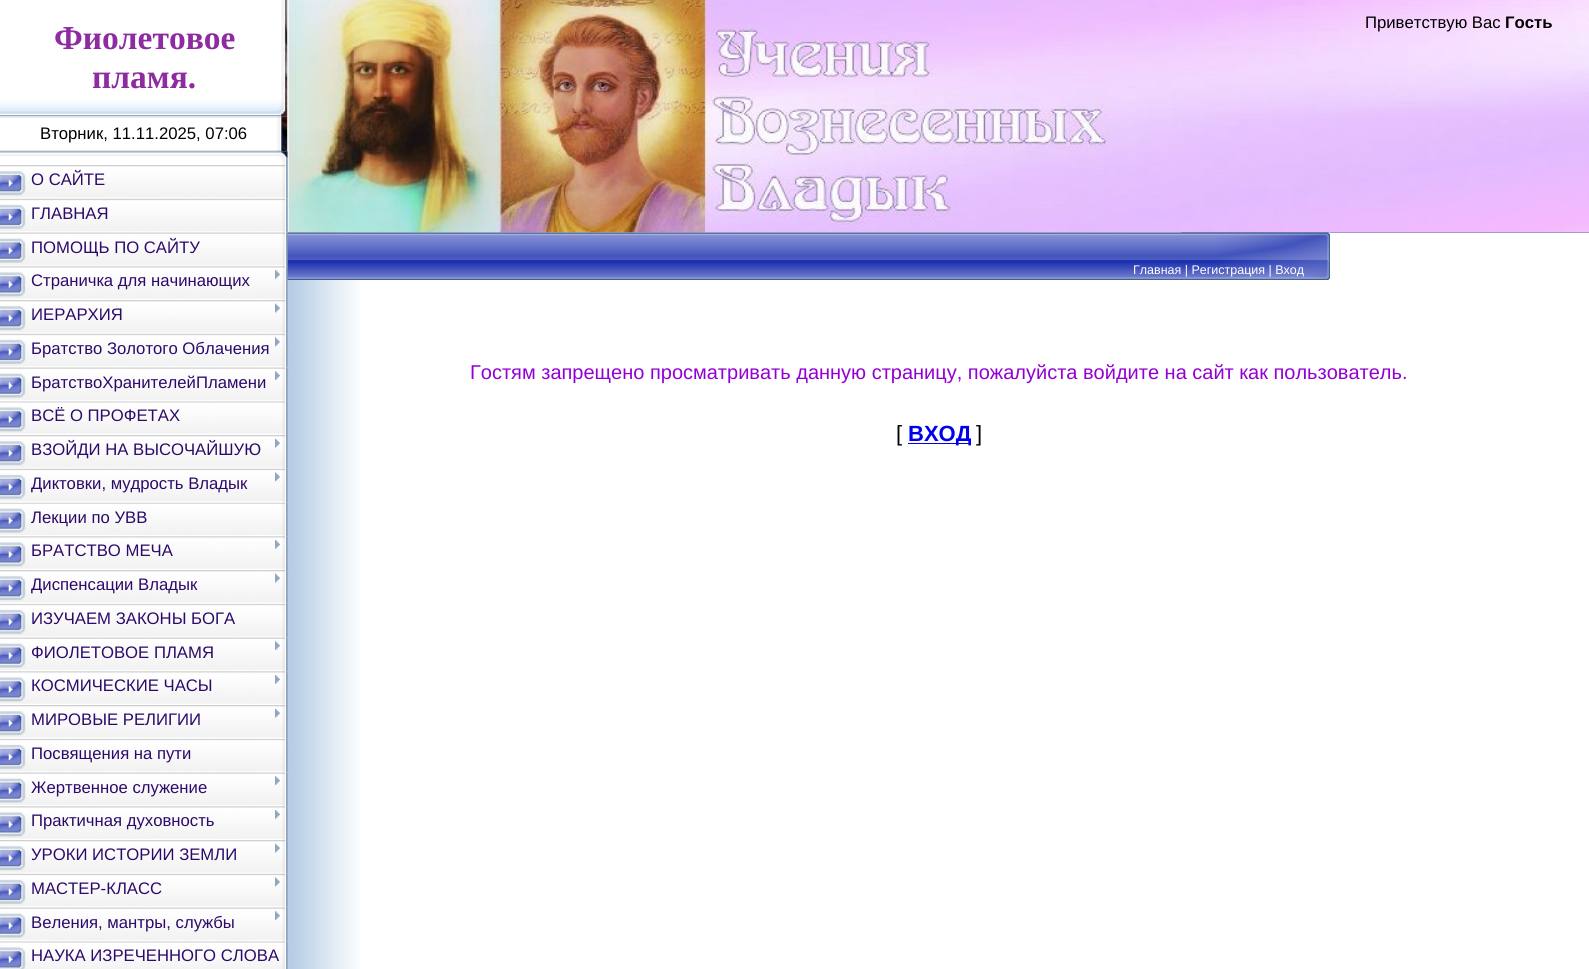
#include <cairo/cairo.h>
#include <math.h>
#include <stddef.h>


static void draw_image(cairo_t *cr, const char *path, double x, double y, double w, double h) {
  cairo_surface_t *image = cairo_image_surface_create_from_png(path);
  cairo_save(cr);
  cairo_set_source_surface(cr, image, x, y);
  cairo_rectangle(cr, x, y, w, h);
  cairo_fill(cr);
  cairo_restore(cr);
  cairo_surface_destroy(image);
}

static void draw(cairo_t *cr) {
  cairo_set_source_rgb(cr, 1, 1, 1);
  cairo_paint(cr);
  draw_image(cr, "images/1.png", 0, 0, 288, 117);
  draw_image(cr, "images/2.png", 0, 116, 288, 36);
  draw_image(cr, "images/26.png", 287, 0, 73, 969);
  draw_image(cr, "images/27.png", 287, 0, 1302, 233);
  draw_image(cr, "images/3.png", 0, 151, 288, 14);
  draw_image(cr, "images/4.png", 0, 165, 288, 34);
  draw_image(cr, "images/28.png", 287, 232, 1302, 48);
  draw_image(cr, "images/5.png", 0, 198, 288, 35);
  draw_image(cr, "images/6.png", 0, 232, 288, 35);
  draw_image(cr, "images/7.png", 0, 266, 288, 34);
  draw_image(cr, "images/8.png", 275, 270, 5, 9);
  draw_image(cr, "images/9.png", 0, 300, 288, 34);
  draw_image(cr, "images/10.png", 275, 303, 5, 10);
  draw_image(cr, "images/11.png", 0, 333, 288, 35);
  draw_image(cr, "images/12.png", 275, 337, 5, 10);
  draw_image(cr, "images/15.png", 0, 401, 288, 34);
  draw_image(cr, "images/13.png", 0, 367, 288, 35);
  draw_image(cr, "images/14.png", 275, 371, 5, 9);
  draw_image(cr, "images/9.png", 0, 435, 288, 34);
  draw_image(cr, "images/10.png", 275, 438, 5, 10);
  draw_image(cr, "images/17.png", 0, 502, 288, 35);
  draw_image(cr, "images/16.png", 0, 468, 288, 35);
  draw_image(cr, "images/12.png", 275, 472, 5, 10);
  draw_image(cr, "images/18.png", 0, 536, 288, 34);
  draw_image(cr, "images/8.png", 275, 540, 5, 9);
  draw_image(cr, "images/20.png", 0, 603, 288, 35);
  draw_image(cr, "images/19.png", 0, 570, 288, 34);
  draw_image(cr, "images/10.png", 275, 573, 5, 10);
  draw_image(cr, "images/21.png", 0, 637, 288, 35);
  draw_image(cr, "images/14.png", 275, 641, 5, 9);
  draw_image(cr, "images/18.png", 0, 671, 288, 34);
  draw_image(cr, "images/8.png", 275, 675, 5, 9);
  draw_image(cr, "images/20.png", 0, 738, 288, 35);
  draw_image(cr, "images/22.png", 0, 705, 288, 34);
  draw_image(cr, "images/10.png", 275, 708, 5, 10);
  draw_image(cr, "images/23.png", 0, 772, 288, 35);
  draw_image(cr, "images/24.png", 275, 776, 5, 9);
  draw_image(cr, "images/18.png", 0, 806, 288, 34);
  draw_image(cr, "images/8.png", 275, 810, 5, 9);
  draw_image(cr, "images/9.png", 0, 840, 288, 34);
  draw_image(cr, "images/10.png", 275, 843, 5, 10);
  draw_image(cr, "images/11.png", 0, 873, 288, 35);
  draw_image(cr, "images/12.png", 275, 877, 5, 10);
  draw_image(cr, "images/25.png", 0, 941, 288, 28);
  draw_image(cr, "images/13.png", 0, 907, 288, 35);
  draw_image(cr, "images/14.png", 275, 911, 5, 9);
  draw_image(cr, "images/29.png", 1181, 232, 149, 48);
  cairo_set_source_rgb(cr, 1, 1, 1);
  cairo_rectangle(cr, 1330, 233, 259, 47);
  cairo_fill(cr);
  cairo_set_source_rgb(cr, 0, 0, 238 / 255.0);
  cairo_rectangle(cr, 908, 443, 62, 1);
  cairo_fill(cr);
  cairo_select_font_face(cr, "Liberation Serif", CAIRO_FONT_SLANT_NORMAL, CAIRO_FONT_WEIGHT_BOLD);
  cairo_set_font_size(cr, 33.5);
  cairo_set_source_rgb(cr, 143 / 255.0, 43 / 255.0, 160 / 255.0);
  cairo_move_to(cr, 54, 49);
  cairo_show_text(cr, "Фиолетовое");
  cairo_move_to(cr, 92, 88);
  cairo_show_text(cr, "пламя.");
  cairo_select_font_face(cr, "Liberation Sans", CAIRO_FONT_SLANT_NORMAL, CAIRO_FONT_WEIGHT_NORMAL);
  cairo_set_font_size(cr, 16.7);
  cairo_set_source_rgb(cr, 0, 0, 0);
  cairo_move_to(cr, 40, 139);
  cairo_show_text(cr, "Вторник, 11.11.2025, 07:06");
  cairo_set_source_rgb(cr, 45 / 255.0, 10 / 255.0, 106 / 255.0);
  cairo_move_to(cr, 31, 185);
  cairo_show_text(cr, "О САЙТЕ");
  cairo_move_to(cr, 31, 219);
  cairo_show_text(cr, "ГЛАВНАЯ");
  cairo_move_to(cr, 31, 253);
  cairo_show_text(cr, "ПОМОЩЬ ПО САЙТУ");
  cairo_move_to(cr, 31, 286);
  cairo_show_text(cr, "Страничка для начинающих");
  cairo_move_to(cr, 31, 320);
  cairo_show_text(cr, "ИЕРАРХИЯ");
  cairo_move_to(cr, 31, 354);
  cairo_show_text(cr, "Братство Золотого Облачения");
  cairo_move_to(cr, 31, 388);
  cairo_show_text(cr, "БратствоХранителейПламени");
  cairo_move_to(cr, 31, 421);
  cairo_show_text(cr, "ВСЁ О ПРОФЕТАХ");
  cairo_move_to(cr, 31, 455);
  cairo_show_text(cr, "ВЗОЙДИ НА ВЫСОЧАЙШУЮ");
  cairo_move_to(cr, 31, 489);
  cairo_show_text(cr, "Диктовки, мудрость Владык");
  cairo_move_to(cr, 31, 523);
  cairo_show_text(cr, "Лекции по УВВ");
  cairo_move_to(cr, 31, 556);
  cairo_show_text(cr, "БРАТСТВО МЕЧА");
  cairo_move_to(cr, 31, 590);
  cairo_show_text(cr, "Диспенсации Владык");
  cairo_move_to(cr, 31, 624);
  cairo_show_text(cr, "ИЗУЧАЕМ ЗАКОНЫ БОГА");
  cairo_move_to(cr, 31, 658);
  cairo_show_text(cr, "ФИОЛЕТОВОЕ ПЛАМЯ");
  cairo_move_to(cr, 31, 691);
  cairo_show_text(cr, "КОСМИЧЕСКИЕ ЧАСЫ");
  cairo_move_to(cr, 31, 725);
  cairo_show_text(cr, "МИРОВЫЕ РЕЛИГИИ");
  cairo_move_to(cr, 31, 759);
  cairo_show_text(cr, "Посвящения на пути");
  cairo_move_to(cr, 31, 793);
  cairo_show_text(cr, "Жертвенное служение");
  cairo_move_to(cr, 31, 826);
  cairo_show_text(cr, "Практичная духовность");
  cairo_move_to(cr, 31, 860);
  cairo_show_text(cr, "УРОКИ ИСТОРИИ ЗЕМЛИ");
  cairo_move_to(cr, 31, 894);
  cairo_show_text(cr, "МАСТЕР-КЛАСС");
  cairo_move_to(cr, 31, 928);
  cairo_show_text(cr, "Веления, мантры, службы");
  cairo_move_to(cr, 31, 961);
  cairo_show_text(cr, "НАУКА ИЗРЕЧЕННОГО СЛОВА");
  cairo_set_source_rgb(cr, 0, 0, 0);
  cairo_move_to(cr, 1365, 28);
  cairo_show_text(cr, "Приветствую Вас");
  cairo_select_font_face(cr, "Liberation Sans", CAIRO_FONT_SLANT_NORMAL, CAIRO_FONT_WEIGHT_BOLD);
  cairo_move_to(cr, 1505, 28);
  cairo_show_text(cr, "Гость");
  cairo_select_font_face(cr, "Liberation Sans", CAIRO_FONT_SLANT_NORMAL, CAIRO_FONT_WEIGHT_NORMAL);
  cairo_set_font_size(cr, 12.5);
  cairo_set_source_rgb(cr, 1, 1, 1);
  cairo_move_to(cr, 1133, 274);
  cairo_show_text(cr, "Главная | Регистрация | Вход");
  cairo_set_font_size(cr, 20);
  cairo_set_source_rgb(cr, 148 / 255.0, 0, 211 / 255.0);
  cairo_move_to(cr, 470, 379);
  cairo_show_text(cr, "Гостям запрещено просматривать данную страницу, пожалуйста войдите на сайт как пользователь.");
  cairo_set_font_size(cr, 22);
  cairo_set_source_rgb(cr, 0, 0, 0);
  cairo_move_to(cr, 896, 441);
  cairo_show_text(cr, "[");
  cairo_select_font_face(cr, "Liberation Sans", CAIRO_FONT_SLANT_NORMAL, CAIRO_FONT_WEIGHT_BOLD);
  cairo_set_source_rgb(cr, 0, 0, 238 / 255.0);
  cairo_move_to(cr, 908, 441);
  cairo_show_text(cr, "ВХОД");
  cairo_select_font_face(cr, "Liberation Sans", CAIRO_FONT_SLANT_NORMAL, CAIRO_FONT_WEIGHT_NORMAL);
  cairo_set_source_rgb(cr, 0, 0, 0);
  cairo_move_to(cr, 976, 441);
  cairo_show_text(cr, "]");
}

int main(void) {
  cairo_surface_t *surface = cairo_image_surface_create(CAIRO_FORMAT_RGB24, 1589, 969);
  cairo_t *cr = cairo_create(surface);
  cairo_font_options_t *options = cairo_font_options_create();
  cairo_font_options_set_hint_metrics(options, CAIRO_HINT_METRICS_OFF);
  cairo_font_options_set_hint_style(options, CAIRO_HINT_STYLE_NONE);
  cairo_set_font_options(cr, options);
  cairo_set_miter_limit(cr, 4);
  draw(cr);
  cairo_surface_write_to_png(surface, "out.png");
  cairo_font_options_destroy(options);
  cairo_destroy(cr);
  cairo_surface_destroy(surface);
  return 0;
}
